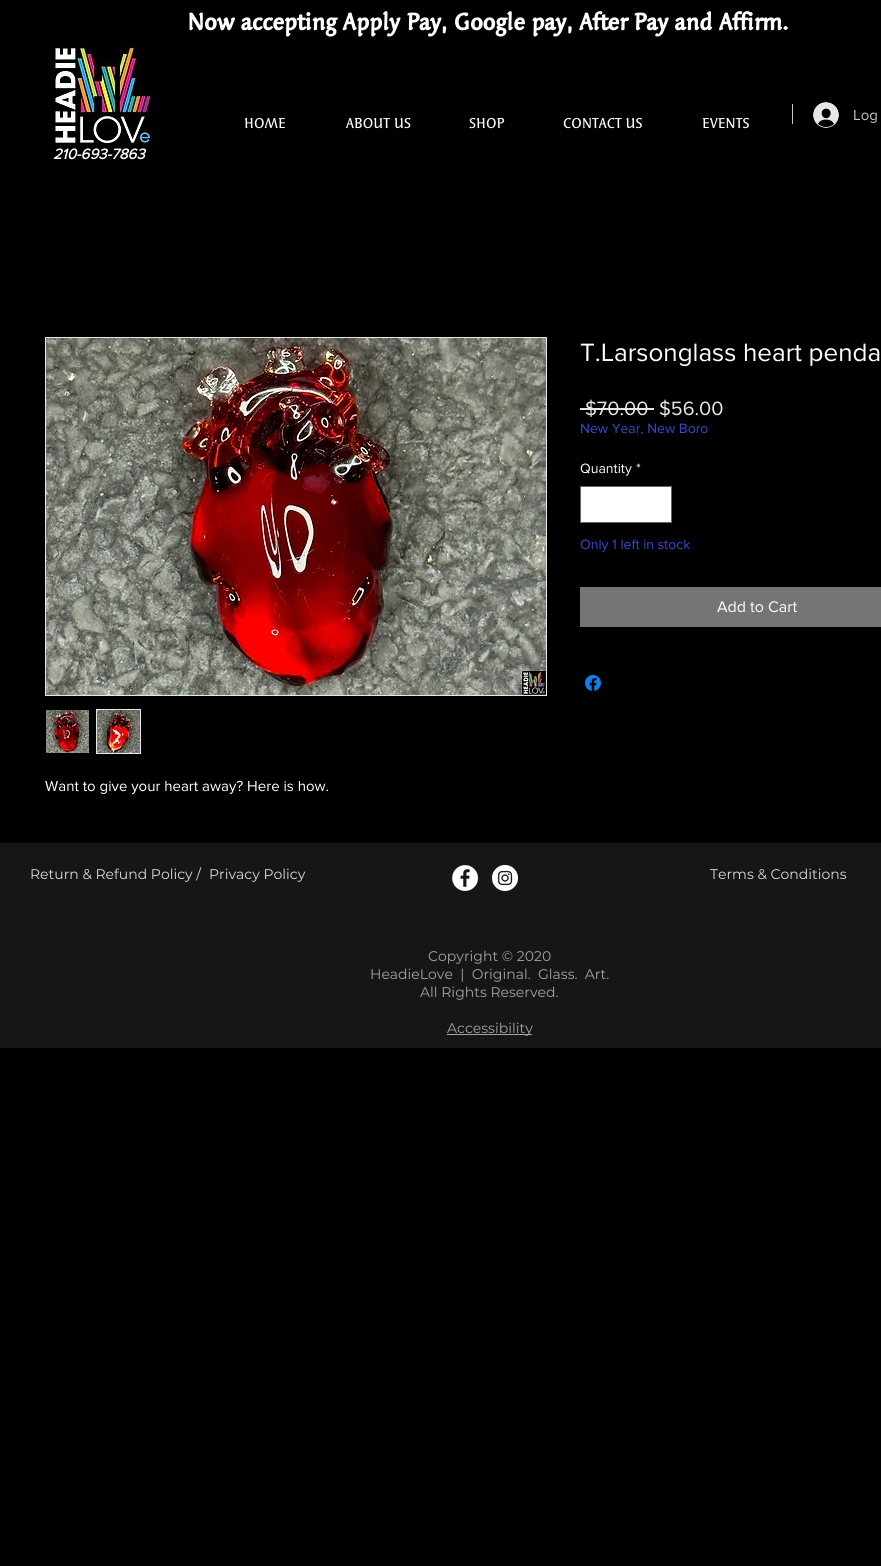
#include <cairo/cairo.h>
#include <math.h>
#include <stddef.h>


static void draw_image(cairo_t *cr, const char *path, double x, double y, double w, double h) {
  cairo_surface_t *image = cairo_image_surface_create_from_png(path);
  cairo_save(cr);
  cairo_set_source_surface(cr, image, x, y);
  cairo_rectangle(cr, x, y, w, h);
  cairo_fill(cr);
  cairo_restore(cr);
  cairo_surface_destroy(image);
}

static void draw(cairo_t *cr) {
  cairo_set_source_rgb(cr, 0, 0, 0);
  cairo_paint(cr);
  draw_image(cr, "images/1.png", 55, 43, 98, 104);
  cairo_set_source_rgb(cr, 199 / 255.0, 199 / 255.0, 199 / 255.0);
  cairo_rectangle(cr, 792, 104, 1, 20);
  cairo_fill(cr);
  draw_image(cr, "images/2.png", 813, 102, 26, 26);
  cairo_set_source_rgb(cr, 232 / 255.0, 230 / 255.0, 230 / 255.0);
  cairo_rectangle(cr, 580, 408, 74, 2);
  cairo_fill(cr);
  cairo_set_source_rgb(cr, 1, 1, 1);
  cairo_rectangle(cr, 580.5, 486.5, 91, 36);
  cairo_fill_preserve(cr);
  cairo_set_source_rgb(cr, 102 / 255.0, 102 / 255.0, 102 / 255.0);
  cairo_set_line_width(cr, 1);
  cairo_stroke(cr);
  cairo_set_source_rgb(cr, 117 / 255.0, 117 / 255.0, 117 / 255.0);
  cairo_rectangle(cr, 580, 587, 301, 40);
  cairo_fill(cr);
  draw_image(cr, "images/3.png", 585, 675, 16, 16);
  cairo_rectangle(cr, 45.5, 337.5, 501, 358);
  cairo_set_source_rgb(cr, 232 / 255.0, 230 / 255.0, 230 / 255.0);
  cairo_stroke(cr);
  draw_image(cr, "images/4.png", 46, 338, 500, 357);
  draw_image(cr, "images/5.png", 46, 710, 43, 43);
  cairo_rectangle(cr, 96, 709, 45, 45);
  cairo_fill(cr);
  draw_image(cr, "images/6.png", 97, 710, 43, 43);
  cairo_set_source_rgb(cr, 22 / 255.0, 22 / 255.0, 22 / 255.0);
  cairo_rectangle(cr, 0, 843, 881, 205);
  cairo_fill(cr);
  draw_image(cr, "images/7.png", 452, 865, 26, 26);
  draw_image(cr, "images/8.png", 492, 865, 26, 26);
  cairo_set_source_rgb(cr, 164 / 255.0, 164 / 255.0, 164 / 255.0);
  cairo_rectangle(cr, 447, 1034, 85, 1);
  cairo_fill(cr);
  cairo_select_font_face(cr, "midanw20", CAIRO_FONT_SLANT_NORMAL, CAIRO_FONT_WEIGHT_BOLD);
  cairo_set_font_size(cr, 36);
  cairo_set_source_rgb(cr, 1, 1, 1);
  cairo_move_to(cr, 187, 30);
  cairo_show_text(cr, "Now accepting Apply Pay, Google pay, After Pay and Affirm.");
  cairo_select_font_face(cr, "midanw20", CAIRO_FONT_SLANT_NORMAL, CAIRO_FONT_WEIGHT_NORMAL);
  cairo_set_font_size(cr, 22);
  cairo_move_to(cr, 244, 128);
  cairo_show_text(cr, "HOME");
  cairo_move_to(cr, 346, 128);
  cairo_show_text(cr, "ABOUT US");
  cairo_move_to(cr, 469, 128);
  cairo_show_text(cr, "SHOP");
  cairo_move_to(cr, 563, 128);
  cairo_show_text(cr, "CONTACT US");
  cairo_move_to(cr, 702, 128);
  cairo_show_text(cr, "EVENTS");
  cairo_select_font_face(cr, "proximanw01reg", CAIRO_FONT_SLANT_NORMAL, CAIRO_FONT_WEIGHT_NORMAL);
  cairo_set_font_size(cr, 15);
  cairo_set_source_rgb(cr, 199 / 255.0, 199 / 255.0, 199 / 255.0);
  cairo_move_to(cr, 853, 120);
  cairo_show_text(cr, "Log");
  cairo_select_font_face(cr, "proximanw01reg", CAIRO_FONT_SLANT_ITALIC, CAIRO_FONT_WEIGHT_BOLD);
  cairo_set_source_rgb(cr, 1, 1, 1);
  cairo_move_to(cr, 53, 159);
  cairo_show_text(cr, "210-693-7863");
  cairo_select_font_face(cr, "proximanw01reg", CAIRO_FONT_SLANT_NORMAL, CAIRO_FONT_WEIGHT_NORMAL);
  cairo_set_font_size(cr, 26);
  cairo_move_to(cr, 580, 361);
  cairo_show_text(cr, "T.Larsonglass heart penda");
  cairo_set_font_size(cr, 20);
  cairo_set_source_rgb(cr, 232 / 255.0, 230 / 255.0, 230 / 255.0);
  cairo_move_to(cr, 585, 415);
  cairo_show_text(cr, "$70.00");
  cairo_move_to(cr, 659, 415);
  cairo_show_text(cr, "$56.00");
  cairo_set_font_size(cr, 14);
  cairo_set_source_rgb(cr, 56 / 255.0, 74 / 255.0, 211 / 255.0);
  cairo_move_to(cr, 580, 433);
  cairo_show_text(cr, "New Year, New Boro");
  cairo_set_source_rgb(cr, 1, 1, 1);
  cairo_move_to(cr, 580, 473);
  cairo_show_text(cr, "Quantity");
  cairo_move_to(cr, 636, 473);
  cairo_show_text(cr, "*");
  cairo_set_source_rgb(cr, 56 / 255.0, 74 / 255.0, 211 / 255.0);
  cairo_move_to(cr, 580, 549);
  cairo_show_text(cr, "Only 1 left in stock");
  cairo_set_font_size(cr, 16);
  cairo_set_source_rgb(cr, 1, 1, 1);
  cairo_move_to(cr, 717, 612);
  cairo_show_text(cr, "Add to Cart");
  cairo_set_font_size(cr, 15);
  cairo_move_to(cr, 45, 791);
  cairo_show_text(cr, "Want to give your heart away? Here is how.");
  cairo_select_font_face(cr, "Montserrat", CAIRO_FONT_SLANT_NORMAL, CAIRO_FONT_WEIGHT_NORMAL);
  cairo_set_font_size(cr, 14);
  cairo_set_source_rgb(cr, 219 / 255.0, 219 / 255.0, 219 / 255.0);
  cairo_move_to(cr, 30, 879);
  cairo_show_text(cr, "Return & Refund Policy /");
  cairo_move_to(cr, 209, 879);
  cairo_show_text(cr, "Privacy Policy");
  cairo_move_to(cr, 710, 879);
  cairo_show_text(cr, "Terms & Conditions");
  cairo_set_source_rgb(cr, 164 / 255.0, 164 / 255.0, 164 / 255.0);
  cairo_move_to(cr, 428, 961);
  cairo_show_text(cr, "Copyright © 2020");
  cairo_move_to(cr, 370, 979);
  cairo_show_text(cr, "HeadieLove  |  Original.  Glass.  Art.");
  cairo_move_to(cr, 420, 997);
  cairo_show_text(cr, "All Rights Reserved.");
  cairo_move_to(cr, 447, 1033);
  cairo_show_text(cr, "Accessibility");
}

int main(void) {
  cairo_surface_t *surface = cairo_image_surface_create(CAIRO_FORMAT_RGB24, 881, 1566);
  cairo_t *cr = cairo_create(surface);
  cairo_font_options_t *options = cairo_font_options_create();
  cairo_font_options_set_hint_metrics(options, CAIRO_HINT_METRICS_OFF);
  cairo_font_options_set_hint_style(options, CAIRO_HINT_STYLE_NONE);
  cairo_set_font_options(cr, options);
  cairo_set_miter_limit(cr, 4);
  draw(cr);
  cairo_surface_write_to_png(surface, "out.png");
  cairo_font_options_destroy(options);
  cairo_destroy(cr);
  cairo_surface_destroy(surface);
  return 0;
}
